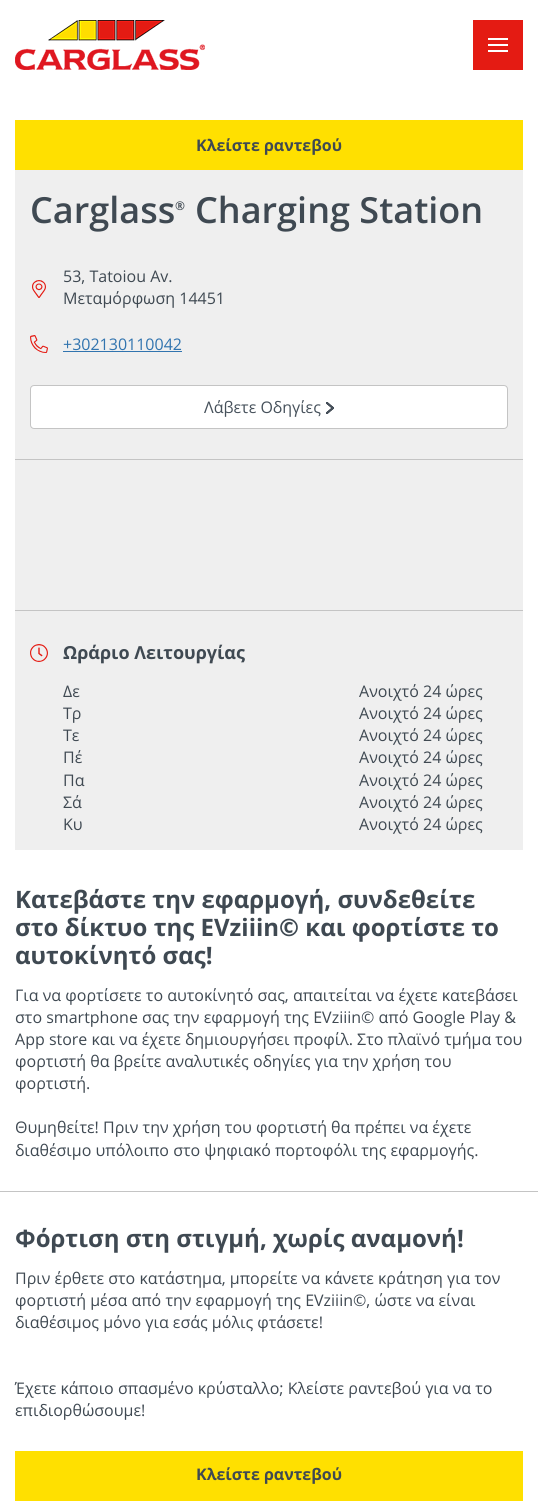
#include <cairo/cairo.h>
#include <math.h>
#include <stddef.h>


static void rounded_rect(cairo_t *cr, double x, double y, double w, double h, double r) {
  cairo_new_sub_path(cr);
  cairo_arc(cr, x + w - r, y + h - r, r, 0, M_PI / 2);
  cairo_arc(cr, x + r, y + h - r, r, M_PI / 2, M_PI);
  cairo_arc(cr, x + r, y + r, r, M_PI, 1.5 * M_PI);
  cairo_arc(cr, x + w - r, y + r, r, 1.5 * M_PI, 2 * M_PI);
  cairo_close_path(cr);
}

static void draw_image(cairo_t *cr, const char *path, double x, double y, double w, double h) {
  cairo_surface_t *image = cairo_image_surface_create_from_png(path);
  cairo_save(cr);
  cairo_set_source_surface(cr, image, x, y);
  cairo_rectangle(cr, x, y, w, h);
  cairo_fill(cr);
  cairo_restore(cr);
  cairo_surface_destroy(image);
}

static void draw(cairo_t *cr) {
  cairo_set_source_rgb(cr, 1, 1, 1);
  cairo_paint(cr);
  draw_image(cr, "images/1.png", 15, 20, 190, 50);
  cairo_set_source_rgb(cr, 228 / 255.0, 27 / 255.0, 19 / 255.0);
  cairo_rectangle(cr, 473, 20, 50, 50);
  cairo_fill(cr);
  draw_image(cr, "images/2.png", 488, 38, 20, 14);
  cairo_set_source_rgb(cr, 239 / 255.0, 239 / 255.0, 239 / 255.0);
  cairo_rectangle(cr, 15, 170, 508, 680);
  cairo_fill(cr);
  cairo_set_source_rgb(cr, 1, 224 / 255.0, 0);
  cairo_rectangle(cr, 15, 120, 508, 50);
  cairo_fill(cr);
  draw_image(cr, "images/3.png", 32, 280, 14, 18);
  draw_image(cr, "images/4.png", 30, 335, 18, 18);
  cairo_set_source_rgb(cr, 49 / 255.0, 116 / 255.0, 175 / 255.0);
  cairo_rectangle(cr, 63, 351, 119, 1);
  cairo_fill(cr);
  cairo_set_source_rgb(cr, 1, 1, 1);
  rounded_rect(cr, 30.5, 385.5, 477, 43, 3.5);
  cairo_fill_preserve(cr);
  cairo_set_source_rgb(cr, 196 / 255.0, 196 / 255.0, 196 / 255.0);
  cairo_set_line_width(cr, 1);
  cairo_stroke(cr);
  draw_image(cr, "images/5.png", 326, 402, 8, 12);
  cairo_rectangle(cr, 15, 459, 508, 1);
  cairo_fill(cr);
  cairo_rectangle(cr, 15, 610, 508, 1);
  cairo_fill(cr);
  draw_image(cr, "images/6.png", 30, 644, 18, 18);
  cairo_rectangle(cr, 0, 1191, 538, 1);
  cairo_fill(cr);
  cairo_set_source_rgb(cr, 1, 224 / 255.0, 0);
  cairo_rectangle(cr, 15, 1451, 508, 50);
  cairo_fill(cr);
  cairo_select_font_face(cr, "Open Sans", CAIRO_FONT_SLANT_NORMAL, CAIRO_FONT_WEIGHT_BOLD);
  cairo_set_font_size(cr, 16);
  cairo_set_source_rgb(cr, 63 / 255.0, 73 / 255.0, 82 / 255.0);
  cairo_move_to(cr, 196, 151);
  cairo_show_text(cr, "Κλείστε ραντεβού");
  cairo_select_font_face(cr, "Open Sans SemiBold", CAIRO_FONT_SLANT_NORMAL, CAIRO_FONT_WEIGHT_NORMAL);
  cairo_set_font_size(cr, 36);
  cairo_move_to(cr, 30, 223);
  cairo_show_text(cr, "Carglass");
  cairo_set_font_size(cr, 12);
  cairo_move_to(cr, 175, 210);
  cairo_show_text(cr, "®");
  cairo_set_font_size(cr, 36);
  cairo_move_to(cr, 195, 223);
  cairo_show_text(cr, "Charging Station");
  cairo_select_font_face(cr, "Open Sans", CAIRO_FONT_SLANT_NORMAL, CAIRO_FONT_WEIGHT_NORMAL);
  cairo_set_font_size(cr, 16);
  cairo_move_to(cr, 63, 282);
  cairo_show_text(cr, "53, Tatoiou Av.");
  cairo_move_to(cr, 63, 304);
  cairo_show_text(cr, "Μεταμόρφωση 14451");
  cairo_set_source_rgb(cr, 49 / 255.0, 116 / 255.0, 175 / 255.0);
  cairo_move_to(cr, 63, 350);
  cairo_show_text(cr, "+302130110042");
  cairo_set_source_rgb(cr, 70 / 255.0, 81 / 255.0, 91 / 255.0);
  cairo_move_to(cr, 204, 413);
  cairo_show_text(cr, "Λάβετε Οδηγίες");
  cairo_select_font_face(cr, "Open Sans", CAIRO_FONT_SLANT_NORMAL, CAIRO_FONT_WEIGHT_BOLD);
  cairo_set_font_size(cr, 18);
  cairo_set_source_rgb(cr, 63 / 255.0, 73 / 255.0, 82 / 255.0);
  cairo_move_to(cr, 63, 659);
  cairo_show_text(cr, "Ωράριο Λειτουργίας");
  cairo_select_font_face(cr, "Open Sans", CAIRO_FONT_SLANT_NORMAL, CAIRO_FONT_WEIGHT_NORMAL);
  cairo_set_font_size(cr, 16);
  cairo_move_to(cr, 63, 697);
  cairo_show_text(cr, "Δε");
  cairo_move_to(cr, 359, 697);
  cairo_show_text(cr, "Ανοιχτό 24 ώρες");
  cairo_move_to(cr, 63, 719);
  cairo_show_text(cr, "Τρ");
  cairo_move_to(cr, 359, 719);
  cairo_show_text(cr, "Ανοιχτό 24 ώρες");
  cairo_move_to(cr, 63, 741);
  cairo_show_text(cr, "Τε");
  cairo_move_to(cr, 359, 741);
  cairo_show_text(cr, "Ανοιχτό 24 ώρες");
  cairo_move_to(cr, 63, 763);
  cairo_show_text(cr, "Πέ");
  cairo_move_to(cr, 359, 763);
  cairo_show_text(cr, "Ανοιχτό 24 ώρες");
  cairo_move_to(cr, 63, 786);
  cairo_show_text(cr, "Πα");
  cairo_move_to(cr, 359, 786);
  cairo_show_text(cr, "Ανοιχτό 24 ώρες");
  cairo_move_to(cr, 63, 808);
  cairo_show_text(cr, "Σά");
  cairo_move_to(cr, 359, 808);
  cairo_show_text(cr, "Ανοιχτό 24 ώρες");
  cairo_move_to(cr, 63, 830);
  cairo_show_text(cr, "Κυ");
  cairo_move_to(cr, 359, 830);
  cairo_show_text(cr, "Ανοιχτό 24 ώρες");
  cairo_select_font_face(cr, "Open Sans", CAIRO_FONT_SLANT_NORMAL, CAIRO_FONT_WEIGHT_BOLD);
  cairo_set_font_size(cr, 24);
  cairo_move_to(cr, 15, 908);
  cairo_show_text(cr, "Κατεβάστε την εφαρμογή, συνδεθείτε");
  cairo_move_to(cr, 15, 936);
  cairo_show_text(cr, "στο δίκτυο της EVziiin© και φορτίστε το");
  cairo_move_to(cr, 15, 964);
  cairo_show_text(cr, "αυτοκίνητό σας!");
  cairo_select_font_face(cr, "Open Sans", CAIRO_FONT_SLANT_NORMAL, CAIRO_FONT_WEIGHT_NORMAL);
  cairo_set_font_size(cr, 16);
  cairo_move_to(cr, 15, 1001);
  cairo_show_text(cr, "Για να φορτίσετε το αυτοκίνητό σας, απαιτείται να έχετε κατεβάσει");
  cairo_move_to(cr, 15, 1023);
  cairo_show_text(cr, "στο smartphone σας την εφαρμογή της EVziiin© από Google Play &");
  cairo_move_to(cr, 15, 1045);
  cairo_show_text(cr, "App store και να έχετε δημιουργήσει προφίλ. Στο πλαϊνό τμήμα του");
  cairo_move_to(cr, 15, 1067);
  cairo_show_text(cr, "φορτιστή θα βρείτε αναλυτικές οδηγίες για την χρήση του");
  cairo_move_to(cr, 15, 1089);
  cairo_show_text(cr, "φορτιστή.");
  cairo_move_to(cr, 15, 1133);
  cairo_show_text(cr, "Θυμηθείτε! Πριν την χρήση του φορτιστή θα πρέπει να έχετε");
  cairo_move_to(cr, 15, 1156);
  cairo_show_text(cr, "διαθέσιμο υπόλοιπο στο ψηφιακό πορτοφόλι της εφαρμογής.");
  cairo_select_font_face(cr, "Open Sans", CAIRO_FONT_SLANT_NORMAL, CAIRO_FONT_WEIGHT_BOLD);
  cairo_set_font_size(cr, 24);
  cairo_move_to(cr, 15, 1247);
  cairo_show_text(cr, "Φόρτιση στη στιγμή, χωρίς αναμονή!");
  cairo_select_font_face(cr, "Open Sans", CAIRO_FONT_SLANT_NORMAL, CAIRO_FONT_WEIGHT_NORMAL);
  cairo_set_font_size(cr, 16);
  cairo_move_to(cr, 15, 1284);
  cairo_show_text(cr, "Πριν έρθετε στο κατάστημα, μπορείτε να κάνετε κράτηση για τον");
  cairo_move_to(cr, 15, 1306);
  cairo_show_text(cr, "φορτιστή μέσα από την εφαρμογή της EVziiin©, ώστε να είναι");
  cairo_move_to(cr, 15, 1328);
  cairo_show_text(cr, "διαθέσιμος μόνο για εσάς μόλις φτάσετε!");
  cairo_move_to(cr, 15, 1394);
  cairo_show_text(cr, "Έχετε κάποιο σπασμένο κρύσταλλο; Κλείστε ραντεβού για να το");
  cairo_move_to(cr, 15, 1416);
  cairo_show_text(cr, "επιδιορθώσουμε!");
  cairo_select_font_face(cr, "Open Sans", CAIRO_FONT_SLANT_NORMAL, CAIRO_FONT_WEIGHT_BOLD);
  cairo_move_to(cr, 196, 1480);
  cairo_show_text(cr, "Κλείστε ραντεβού");
}

int main(void) {
  cairo_surface_t *surface = cairo_image_surface_create(CAIRO_FORMAT_RGB24, 538, 1508);
  cairo_t *cr = cairo_create(surface);
  cairo_font_options_t *options = cairo_font_options_create();
  cairo_font_options_set_hint_metrics(options, CAIRO_HINT_METRICS_OFF);
  cairo_font_options_set_hint_style(options, CAIRO_HINT_STYLE_NONE);
  cairo_set_font_options(cr, options);
  cairo_set_miter_limit(cr, 4);
  draw(cr);
  cairo_surface_write_to_png(surface, "out.png");
  cairo_font_options_destroy(options);
  cairo_destroy(cr);
  cairo_surface_destroy(surface);
  return 0;
}
